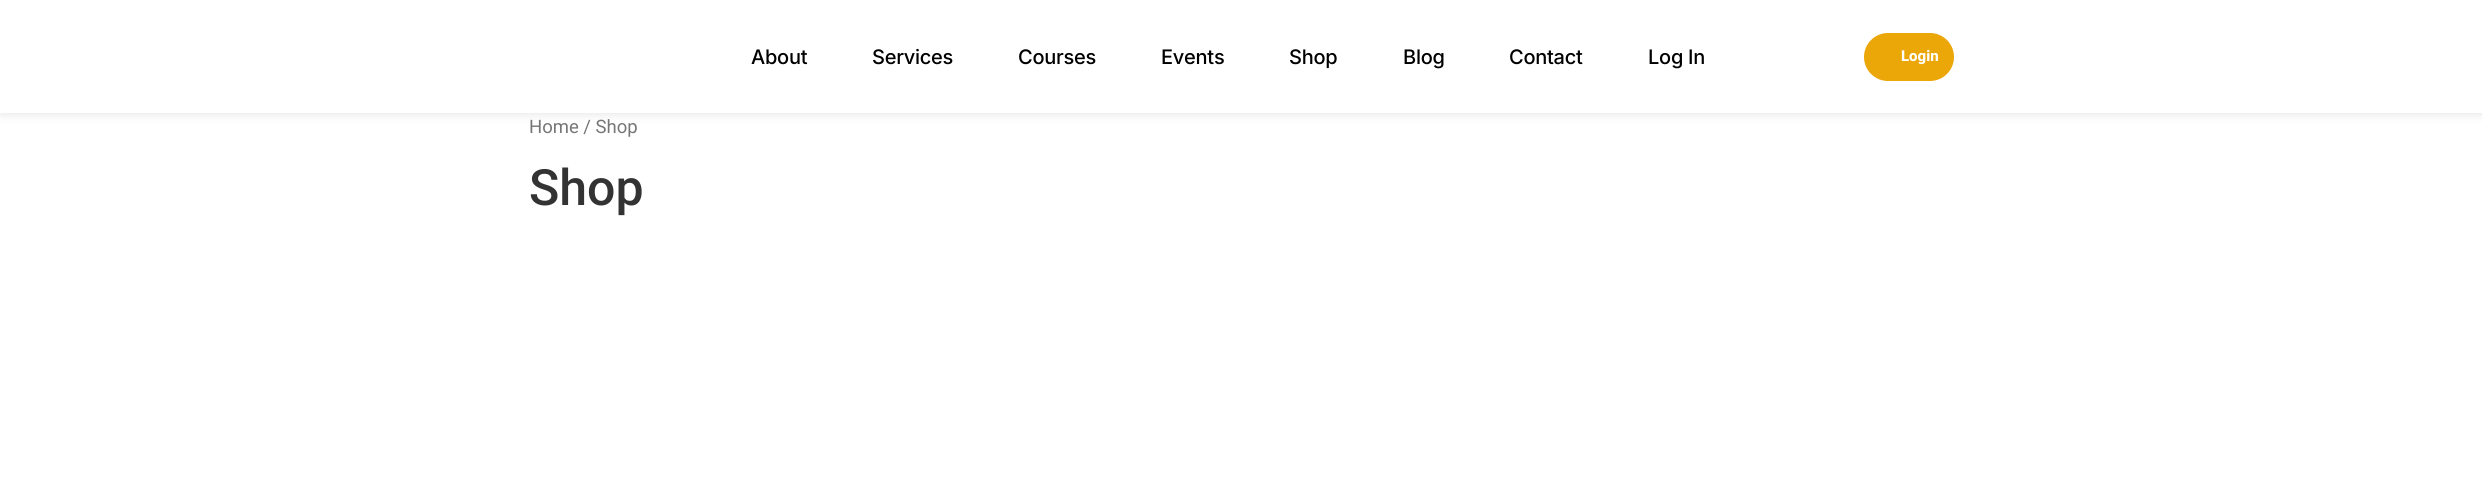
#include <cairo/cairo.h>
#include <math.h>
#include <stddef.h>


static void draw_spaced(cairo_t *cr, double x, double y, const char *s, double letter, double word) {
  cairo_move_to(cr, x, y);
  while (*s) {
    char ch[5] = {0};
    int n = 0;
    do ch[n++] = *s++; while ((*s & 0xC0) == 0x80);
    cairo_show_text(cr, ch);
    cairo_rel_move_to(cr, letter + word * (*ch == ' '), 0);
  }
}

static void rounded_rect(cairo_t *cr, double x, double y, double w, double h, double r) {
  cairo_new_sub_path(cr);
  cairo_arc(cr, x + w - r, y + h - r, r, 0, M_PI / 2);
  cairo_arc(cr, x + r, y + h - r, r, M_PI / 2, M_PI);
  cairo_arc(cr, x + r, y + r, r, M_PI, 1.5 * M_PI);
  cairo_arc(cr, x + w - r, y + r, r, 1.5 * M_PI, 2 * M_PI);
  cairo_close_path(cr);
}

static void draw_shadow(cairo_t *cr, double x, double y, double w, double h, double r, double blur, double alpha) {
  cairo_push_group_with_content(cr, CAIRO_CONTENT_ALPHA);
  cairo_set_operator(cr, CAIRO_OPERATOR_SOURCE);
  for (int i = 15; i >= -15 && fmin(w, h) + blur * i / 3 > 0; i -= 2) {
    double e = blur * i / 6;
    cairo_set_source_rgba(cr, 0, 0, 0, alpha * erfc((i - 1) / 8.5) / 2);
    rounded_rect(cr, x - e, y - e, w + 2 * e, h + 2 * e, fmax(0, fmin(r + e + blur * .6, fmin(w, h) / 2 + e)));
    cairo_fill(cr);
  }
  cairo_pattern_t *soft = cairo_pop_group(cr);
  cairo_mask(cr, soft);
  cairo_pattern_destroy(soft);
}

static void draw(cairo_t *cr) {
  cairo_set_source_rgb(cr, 1, 1, 1);
  cairo_paint(cr);
  cairo_set_source_rgb(cr, 0, 0, 0);
  draw_shadow(cr, 0, 0, 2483, 113, 0, 6, 0.12);
  cairo_set_source_rgb(cr, 1, 1, 1);
  cairo_rectangle(cr, 0, 0, 2482, 113);
  cairo_fill(cr);
  cairo_set_source_rgb(cr, 235 / 255.0, 166 / 255.0, 7 / 255.0);
  rounded_rect(cr, 1864, 33, 90, 48, 24);
  cairo_fill(cr);
  cairo_select_font_face(cr, "Inter Medium", CAIRO_FONT_SLANT_NORMAL, CAIRO_FONT_WEIGHT_NORMAL);
  cairo_set_font_size(cr, 20);
  cairo_set_source_rgb(cr, 0, 0, 0);
  draw_spaced(cr, 751, 64, "About", -0.25, 0);
  draw_spaced(cr, 872, 64, "Services", -0.25, 0);
  draw_spaced(cr, 1018, 64, "Courses", -0.25, 0);
  draw_spaced(cr, 1161, 64, "Events", -0.25, 0);
  draw_spaced(cr, 1289, 64, "Shop", -0.25, 0);
  draw_spaced(cr, 1403, 64, "Blog", -0.25, 0);
  draw_spaced(cr, 1509, 64, "Contact", -0.25, 0);
  draw_spaced(cr, 1648, 64, "Log In", -0.25, 0);
  cairo_select_font_face(cr, "Roboto ExtraBold", CAIRO_FONT_SLANT_NORMAL, CAIRO_FONT_WEIGHT_NORMAL);
  cairo_set_font_size(cr, 15);
  cairo_set_source_rgb(cr, 1, 1, 1);
  cairo_move_to(cr, 1901, 61);
  cairo_show_text(cr, "Login");
  cairo_select_font_face(cr, "Roboto", CAIRO_FONT_SLANT_NORMAL, CAIRO_FONT_WEIGHT_NORMAL);
  cairo_set_font_size(cr, 18.5);
  cairo_set_source_rgb(cr, 118 / 255.0, 118 / 255.0, 118 / 255.0);
  cairo_move_to(cr, 529, 133);
  cairo_show_text(cr, "Home / Shop");
  cairo_select_font_face(cr, "Roboto Medium", CAIRO_FONT_SLANT_NORMAL, CAIRO_FONT_WEIGHT_NORMAL);
  cairo_set_font_size(cr, 50);
  cairo_set_source_rgb(cr, 51 / 255.0, 51 / 255.0, 51 / 255.0);
  cairo_move_to(cr, 529, 205);
  cairo_show_text(cr, "Shop");
}

int main(void) {
  cairo_surface_t *surface = cairo_image_surface_create(CAIRO_FORMAT_RGB24, 2482, 493);
  cairo_t *cr = cairo_create(surface);
  cairo_font_options_t *options = cairo_font_options_create();
  cairo_font_options_set_hint_metrics(options, CAIRO_HINT_METRICS_OFF);
  cairo_font_options_set_hint_style(options, CAIRO_HINT_STYLE_NONE);
  cairo_set_font_options(cr, options);
  cairo_set_miter_limit(cr, 4);
  draw(cr);
  cairo_surface_write_to_png(surface, "out.png");
  cairo_font_options_destroy(options);
  cairo_destroy(cr);
  cairo_surface_destroy(surface);
  return 0;
}
